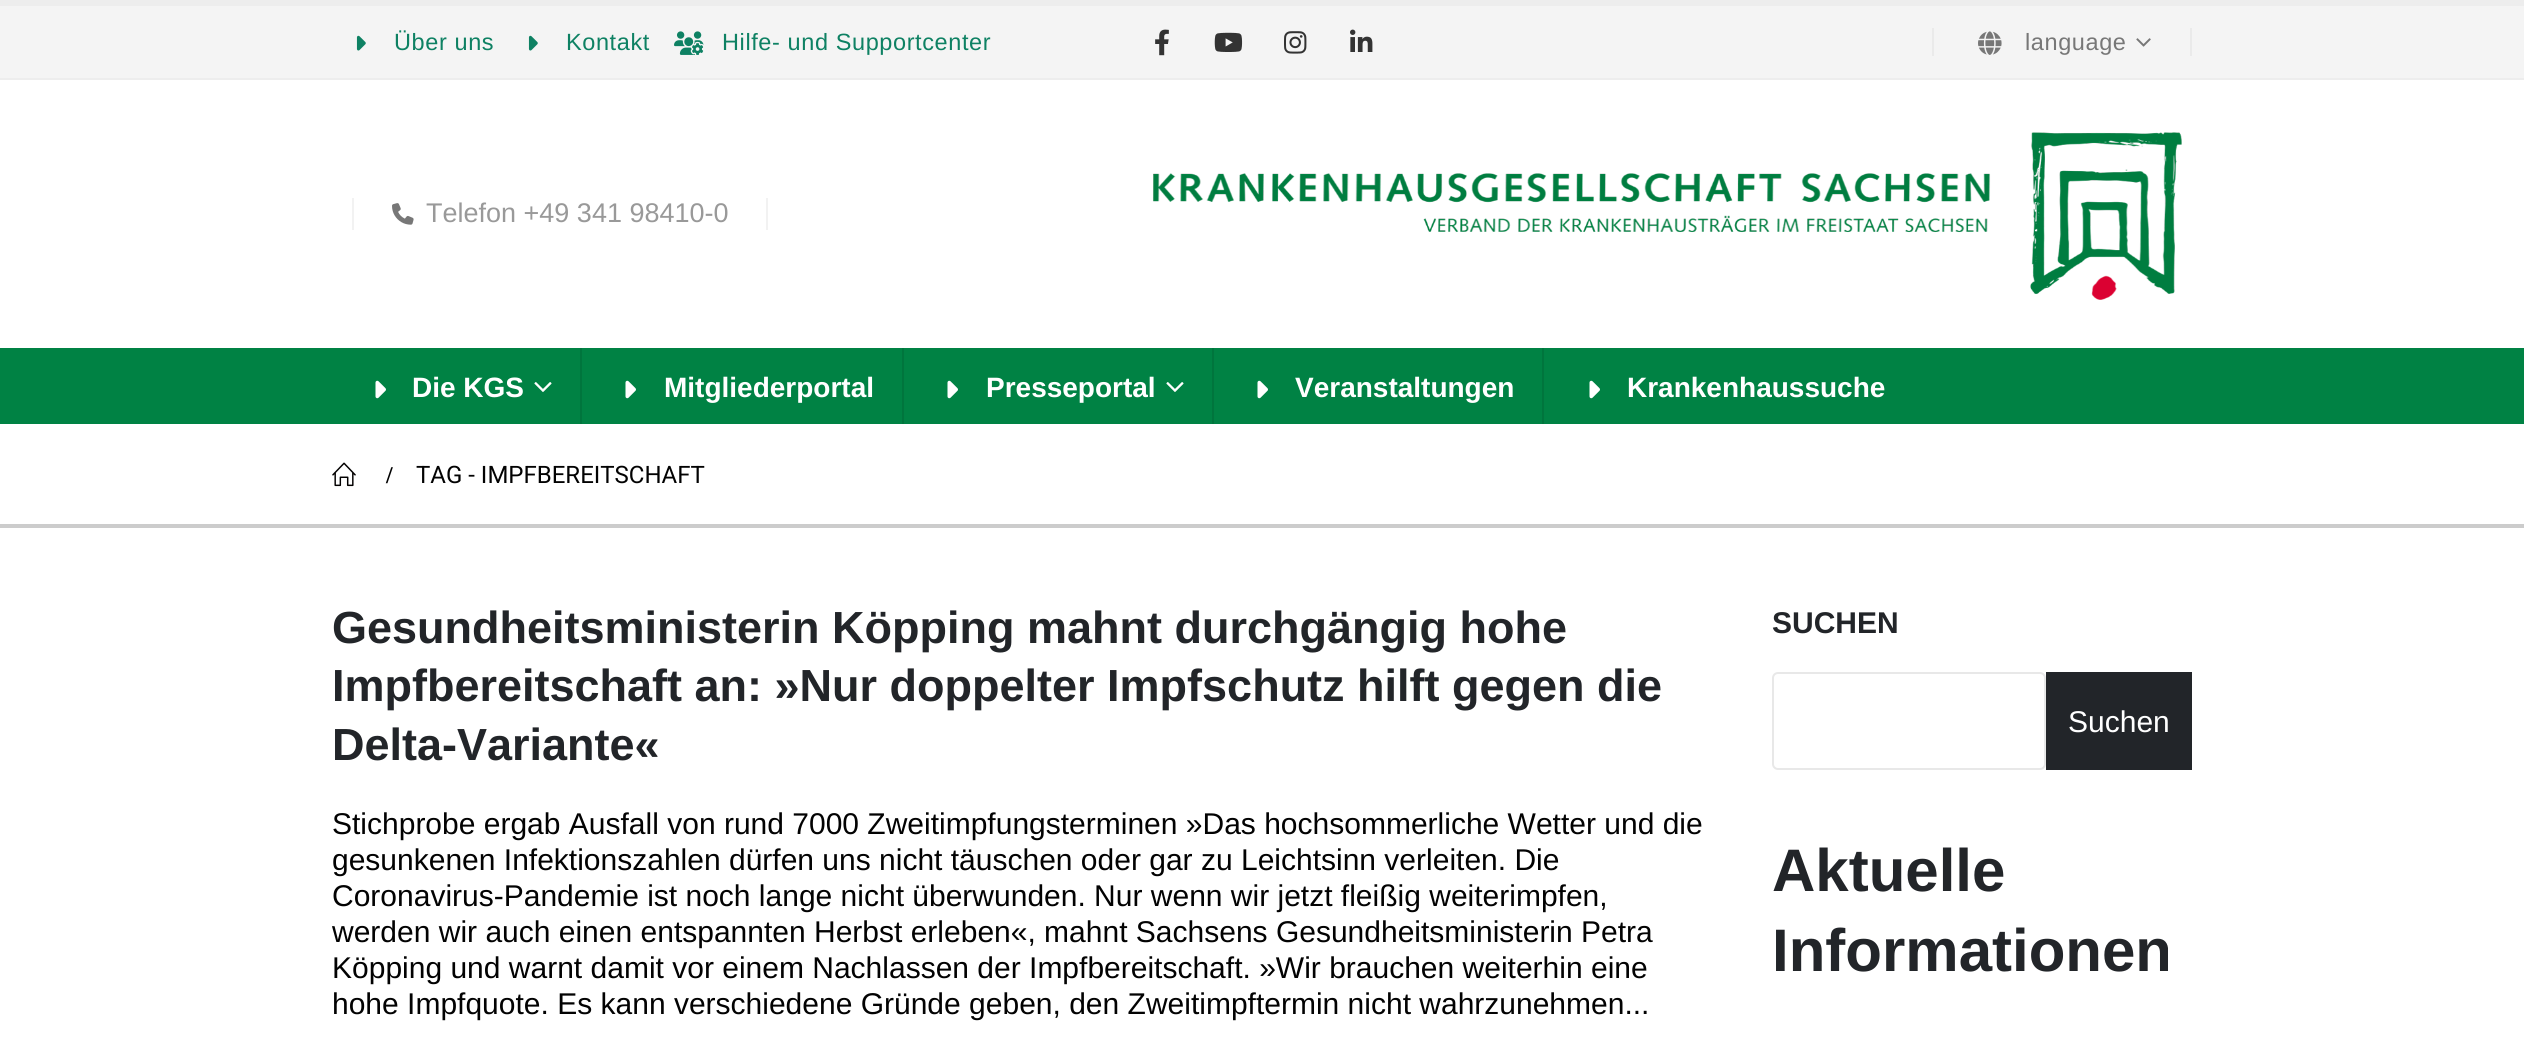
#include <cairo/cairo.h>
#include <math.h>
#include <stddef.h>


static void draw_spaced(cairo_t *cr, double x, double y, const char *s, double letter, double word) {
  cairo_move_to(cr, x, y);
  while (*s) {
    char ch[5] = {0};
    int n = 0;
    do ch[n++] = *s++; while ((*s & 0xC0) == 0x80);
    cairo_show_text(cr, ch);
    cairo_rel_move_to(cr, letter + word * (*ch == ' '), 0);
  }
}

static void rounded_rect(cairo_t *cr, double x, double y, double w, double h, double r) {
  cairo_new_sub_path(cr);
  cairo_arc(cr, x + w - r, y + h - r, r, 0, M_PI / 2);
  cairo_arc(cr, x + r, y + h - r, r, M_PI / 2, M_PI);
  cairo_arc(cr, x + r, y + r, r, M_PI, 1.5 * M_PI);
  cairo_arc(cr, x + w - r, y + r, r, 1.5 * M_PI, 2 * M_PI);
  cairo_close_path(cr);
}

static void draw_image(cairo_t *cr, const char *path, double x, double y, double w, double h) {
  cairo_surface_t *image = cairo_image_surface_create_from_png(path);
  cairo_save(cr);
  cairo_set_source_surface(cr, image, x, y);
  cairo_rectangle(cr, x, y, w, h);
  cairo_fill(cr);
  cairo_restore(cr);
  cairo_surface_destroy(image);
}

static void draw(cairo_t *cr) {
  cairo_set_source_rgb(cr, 1, 1, 1);
  cairo_paint(cr);
  cairo_set_source_rgb(cr, 237 / 255.0, 237 / 255.0, 237 / 255.0);
  cairo_rectangle(cr, 0, 0, 2524, 6);
  cairo_fill(cr);
  cairo_set_source_rgb(cr, 244 / 255.0, 244 / 255.0, 244 / 255.0);
  cairo_rectangle(cr, 0, 6, 2524, 72);
  cairo_fill(cr);
  cairo_set_source_rgb(cr, 237 / 255.0, 237 / 255.0, 237 / 255.0);
  cairo_rectangle(cr, 0, 78, 2524, 2);
  cairo_fill(cr);
  draw_image(cr, "images/1.png", 356, 35, 10, 16);
  draw_image(cr, "images/1.png", 528, 35, 10, 16);
  draw_image(cr, "images/2.png", 674, 31, 30, 24);
  draw_image(cr, "images/3.png", 1155, 29, 14, 27);
  draw_image(cr, "images/4.png", 1214, 32, 29, 20);
  draw_image(cr, "images/5.png", 1284, 31, 23, 23);
  draw_image(cr, "images/6.png", 1350, 29, 23, 23);
  cairo_set_source_rgb(cr, 234 / 255.0, 234 / 255.0, 234 / 255.0);
  cairo_rectangle(cr, 1932, 28, 2, 28);
  cairo_fill(cr);
  draw_image(cr, "images/7.png", 1978, 31, 24, 24);
  draw_image(cr, "images/8.png", 2136, 38, 15, 9);
  cairo_rectangle(cr, 2190, 28, 2, 28);
  cairo_fill(cr);
  cairo_set_source_rgb(cr, 242 / 255.0, 242 / 255.0, 242 / 255.0);
  cairo_rectangle(cr, 352, 198, 2, 32);
  cairo_fill(cr);
  draw_image(cr, "images/9.png", 392, 203, 22, 22);
  cairo_rectangle(cr, 766, 198, 2, 32);
  cairo_fill(cr);
  draw_image(cr, "images/10.png", 1152, 132, 1030, 168);
  cairo_set_source_rgb(cr, 0, 130 / 255.0, 68 / 255.0);
  cairo_rectangle(cr, 0, 348, 2524, 76);
  cairo_fill(cr);
  cairo_set_source_rgb(cr, 0, 117 / 255.0, 61 / 255.0);
  cairo_rectangle(cr, 580, 348, 2, 76);
  cairo_fill(cr);
  draw_image(cr, "images/11.png", 375, 380, 11, 19);
  draw_image(cr, "images/12.png", 534, 382, 18, 10);
  cairo_rectangle(cr, 902, 348, 2, 76);
  cairo_fill(cr);
  draw_image(cr, "images/11.png", 625, 380, 11, 19);
  cairo_rectangle(cr, 1212, 348, 2, 76);
  cairo_fill(cr);
  draw_image(cr, "images/11.png", 947, 380, 11, 19);
  draw_image(cr, "images/12.png", 1166, 382, 18, 10);
  cairo_rectangle(cr, 1542, 348, 2, 76);
  cairo_fill(cr);
  draw_image(cr, "images/11.png", 1257, 380, 11, 19);
  draw_image(cr, "images/11.png", 1589, 380, 11, 19);
  cairo_set_source_rgb(cr, 204 / 255.0, 204 / 255.0, 204 / 255.0);
  cairo_rectangle(cr, 0, 524, 2524, 4);
  cairo_fill(cr);
  draw_image(cr, "images/13.png", 332, 462, 24, 25);
  rounded_rect(cr, 1773, 673, 272, 96, 5);
  cairo_set_source_rgb(cr, 232 / 255.0, 232 / 255.0, 232 / 255.0);
  cairo_stroke(cr);
  cairo_set_source_rgb(cr, 34 / 255.0, 37 / 255.0, 41 / 255.0);
  cairo_rectangle(cr, 2046, 672, 146, 98);
  cairo_fill(cr);
  cairo_select_font_face(cr, "Liberation Sans", CAIRO_FONT_SLANT_NORMAL, CAIRO_FONT_WEIGHT_NORMAL);
  cairo_set_font_size(cr, 23.5);
  cairo_set_source_rgb(cr, 14 / 255.0, 129 / 255.0, 99 / 255.0);
  draw_spaced(cr, 394, 50, "Über uns", 0.6, 0);
  draw_spaced(cr, 566, 50, "Kontakt", 0.6, 0);
  draw_spaced(cr, 722, 50, "Hilfe- und Supportcenter", 0.6, 0);
  cairo_set_source_rgb(cr, 119 / 255.0, 119 / 255.0, 119 / 255.0);
  draw_spaced(cr, 2025, 50, "language", 0.6, 0);
  cairo_set_font_size(cr, 27);
  cairo_set_source_rgb(cr, 153 / 255.0, 153 / 255.0, 153 / 255.0);
  cairo_move_to(cr, 426, 222);
  cairo_show_text(cr, "Telefon +49 341 98410-0");
  cairo_select_font_face(cr, "Liberation Sans", CAIRO_FONT_SLANT_NORMAL, CAIRO_FONT_WEIGHT_BOLD);
  cairo_set_font_size(cr, 28);
  cairo_set_source_rgb(cr, 1, 1, 1);
  cairo_move_to(cr, 412, 397);
  cairo_show_text(cr, "Die KGS");
  cairo_move_to(cr, 664, 397);
  cairo_show_text(cr, "Mitgliederportal");
  cairo_move_to(cr, 986, 397);
  cairo_show_text(cr, "Presseportal");
  cairo_move_to(cr, 1295, 397);
  cairo_show_text(cr, "Veranstaltungen");
  cairo_move_to(cr, 1627, 397);
  cairo_show_text(cr, "Krankenhaussuche");
  cairo_select_font_face(cr, "Liberation Serif", CAIRO_FONT_SLANT_NORMAL, CAIRO_FONT_WEIGHT_BOLD);
  cairo_set_font_size(cr, 24);
  cairo_set_source_rgb(cr, 2 / 255.0, 2 / 255.0, 2 / 255.0);
  cairo_move_to(cr, 386, 483);
  cairo_show_text(cr, "/");
  cairo_select_font_face(cr, "Roboto", CAIRO_FONT_SLANT_NORMAL, CAIRO_FONT_WEIGHT_NORMAL);
  cairo_move_to(cr, 416, 483);
  cairo_show_text(cr, "TAG - IMPFBEREITSCHAFT");
  cairo_select_font_face(cr, "Liberation Sans", CAIRO_FONT_SLANT_NORMAL, CAIRO_FONT_WEIGHT_BOLD);
  cairo_set_font_size(cr, 45);
  cairo_set_source_rgb(cr, 34 / 255.0, 37 / 255.0, 41 / 255.0);
  cairo_move_to(cr, 332, 643);
  cairo_show_text(cr, "Gesundheitsministerin Köpping mahnt durchgängig hohe");
  cairo_move_to(cr, 332, 701);
  cairo_show_text(cr, "Impfbereitschaft an: »Nur doppelter Impfschutz hilft gegen die");
  cairo_move_to(cr, 332, 760);
  cairo_show_text(cr, "Delta-Variante«");
  cairo_select_font_face(cr, "Liberation Sans", CAIRO_FONT_SLANT_NORMAL, CAIRO_FONT_WEIGHT_NORMAL);
  cairo_set_font_size(cr, 30);
  cairo_set_source_rgb(cr, 2 / 255.0, 2 / 255.0, 2 / 255.0);
  cairo_move_to(cr, 332, 834);
  cairo_show_text(cr, "Stichprobe ergab Ausfall von rund 7000 Zweitimpfungsterminen »Das hochsommerliche Wetter und die");
  cairo_move_to(cr, 332, 870);
  cairo_show_text(cr, "gesunkenen Infektionszahlen dürfen uns nicht täuschen oder gar zu Leichtsinn verleiten. Die");
  cairo_move_to(cr, 332, 906);
  cairo_show_text(cr, "Coronavirus-Pandemie ist noch lange nicht überwunden. Nur wenn wir jetzt fleißig weiterimpfen,");
  cairo_move_to(cr, 332, 942);
  cairo_show_text(cr, "werden wir auch einen entspannten Herbst erleben«, mahnt Sachsens Gesundheitsministerin Petra");
  cairo_move_to(cr, 332, 978);
  cairo_show_text(cr, "Köpping und warnt damit vor einem Nachlassen der Impfbereitschaft. »Wir brauchen weiterhin eine");
  cairo_move_to(cr, 332, 1014);
  cairo_show_text(cr, "hohe Impfquote. Es kann verschiedene Gründe geben, den Zweitimpftermin nicht wahrzunehmen...");
  cairo_select_font_face(cr, "Liberation Sans", CAIRO_FONT_SLANT_NORMAL, CAIRO_FONT_WEIGHT_BOLD);
  cairo_set_source_rgb(cr, 34 / 255.0, 37 / 255.0, 41 / 255.0);
  cairo_move_to(cr, 1772, 633);
  cairo_show_text(cr, "SUCHEN");
  cairo_select_font_face(cr, "Liberation Sans", CAIRO_FONT_SLANT_NORMAL, CAIRO_FONT_WEIGHT_NORMAL);
  cairo_set_source_rgb(cr, 1, 1, 1);
  cairo_move_to(cr, 2068, 732);
  cairo_show_text(cr, "Suchen");
  cairo_select_font_face(cr, "Liberation Sans", CAIRO_FONT_SLANT_NORMAL, CAIRO_FONT_WEIGHT_BOLD);
  cairo_set_font_size(cr, 60);
  cairo_set_source_rgb(cr, 34 / 255.0, 37 / 255.0, 41 / 255.0);
  cairo_move_to(cr, 1772, 891);
  cairo_show_text(cr, "Aktuelle");
  cairo_move_to(cr, 1772, 971);
  cairo_show_text(cr, "Informationen");
}

int main(void) {
  cairo_surface_t *surface = cairo_image_surface_create(CAIRO_FORMAT_RGB24, 2524, 1049);
  cairo_t *cr = cairo_create(surface);
  cairo_font_options_t *options = cairo_font_options_create();
  cairo_font_options_set_hint_metrics(options, CAIRO_HINT_METRICS_OFF);
  cairo_font_options_set_hint_style(options, CAIRO_HINT_STYLE_NONE);
  cairo_set_font_options(cr, options);
  cairo_set_miter_limit(cr, 4);
  draw(cr);
  cairo_surface_write_to_png(surface, "out.png");
  cairo_font_options_destroy(options);
  cairo_destroy(cr);
  cairo_surface_destroy(surface);
  return 0;
}
